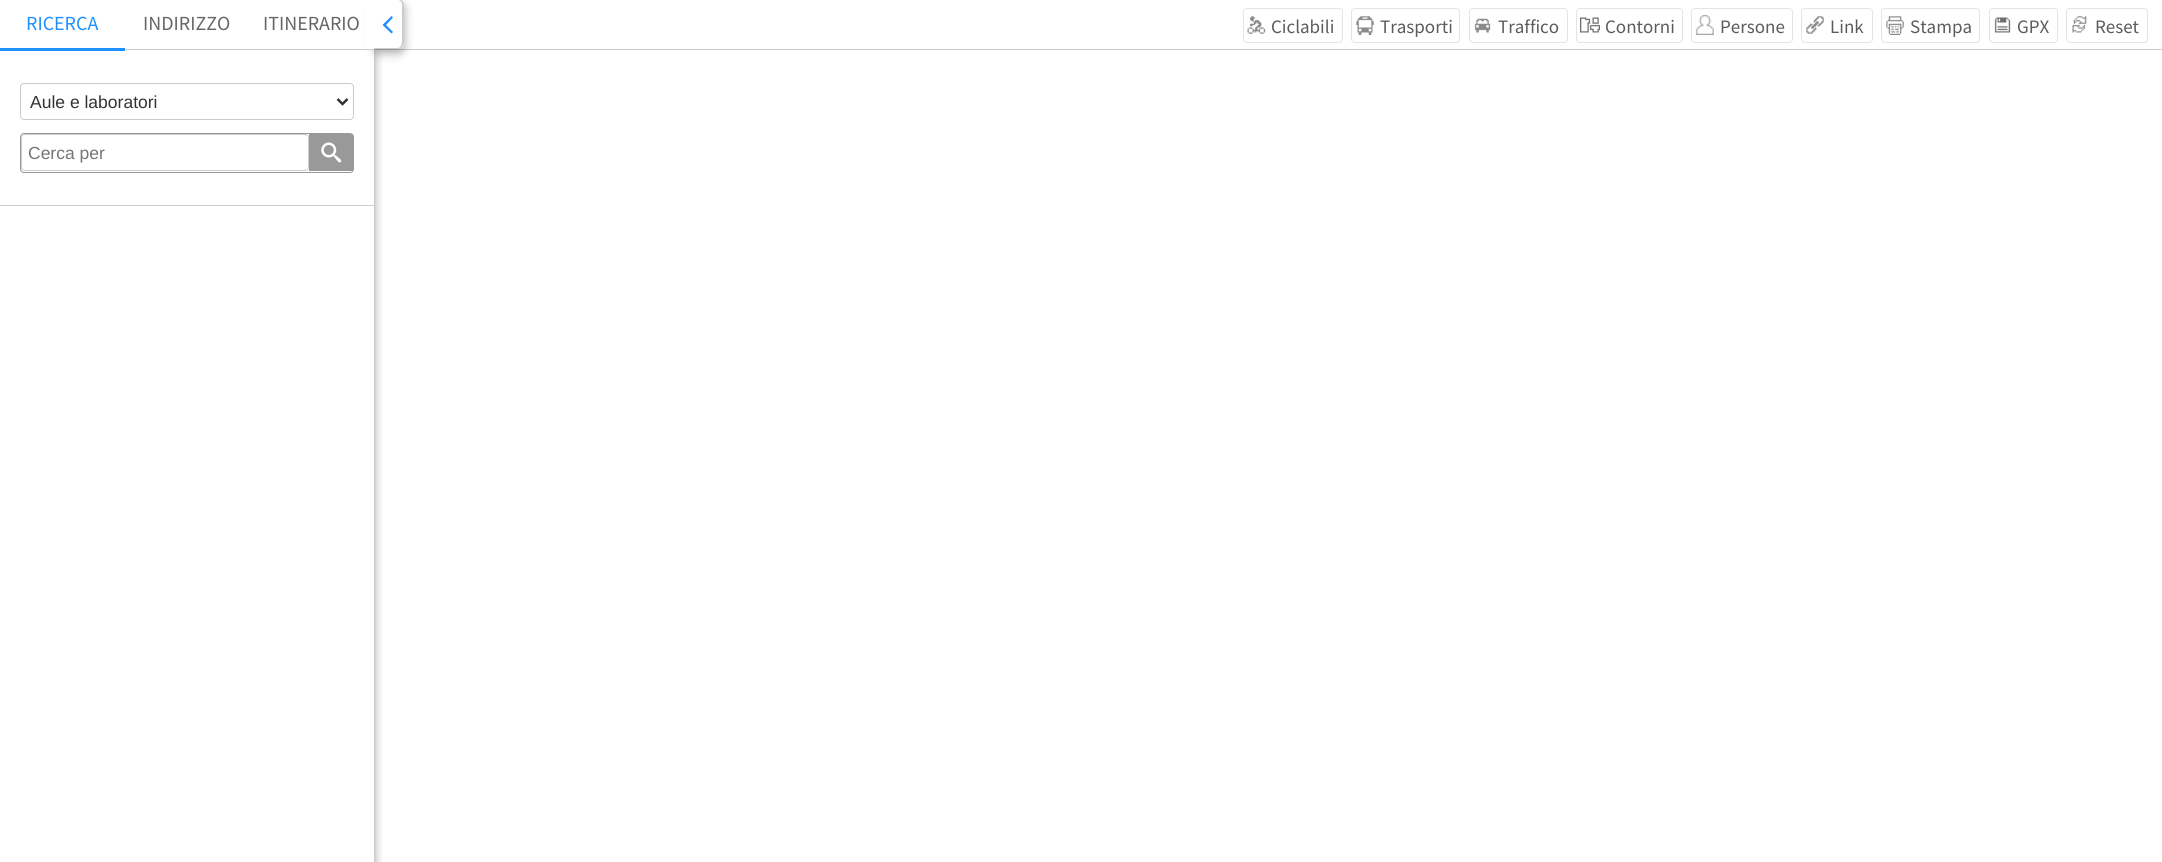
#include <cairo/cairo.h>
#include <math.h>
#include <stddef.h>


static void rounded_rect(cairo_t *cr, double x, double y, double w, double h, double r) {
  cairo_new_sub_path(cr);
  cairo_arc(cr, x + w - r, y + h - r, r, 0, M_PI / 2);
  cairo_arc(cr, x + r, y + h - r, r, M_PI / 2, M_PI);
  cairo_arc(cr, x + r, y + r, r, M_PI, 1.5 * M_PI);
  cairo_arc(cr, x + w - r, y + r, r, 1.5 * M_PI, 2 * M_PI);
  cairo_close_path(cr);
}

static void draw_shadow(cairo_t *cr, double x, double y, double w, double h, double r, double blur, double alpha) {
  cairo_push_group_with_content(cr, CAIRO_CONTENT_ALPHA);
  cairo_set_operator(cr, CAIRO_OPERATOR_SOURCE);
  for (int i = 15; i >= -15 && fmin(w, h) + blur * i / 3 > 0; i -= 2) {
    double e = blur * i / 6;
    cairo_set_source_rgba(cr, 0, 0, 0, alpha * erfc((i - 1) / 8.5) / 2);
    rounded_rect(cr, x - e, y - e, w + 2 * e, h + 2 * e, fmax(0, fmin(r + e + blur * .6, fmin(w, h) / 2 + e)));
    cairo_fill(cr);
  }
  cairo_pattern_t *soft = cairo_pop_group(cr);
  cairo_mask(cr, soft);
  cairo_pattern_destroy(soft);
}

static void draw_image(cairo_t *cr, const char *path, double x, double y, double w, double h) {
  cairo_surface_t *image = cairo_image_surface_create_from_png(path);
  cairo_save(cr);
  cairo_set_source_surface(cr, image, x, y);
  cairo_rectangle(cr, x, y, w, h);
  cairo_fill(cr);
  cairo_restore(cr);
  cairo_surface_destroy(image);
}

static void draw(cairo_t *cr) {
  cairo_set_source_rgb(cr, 1, 1, 1);
  cairo_paint(cr);
  cairo_set_source_rgb(cr, 204 / 255.0, 204 / 255.0, 204 / 255.0);
  cairo_rectangle(cr, 375, 49, 1787, 1);
  cairo_fill(cr);
  cairo_save(cr);
  cairo_rectangle(cr, 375, 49, 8, 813);
  cairo_clip(cr);
  cairo_set_source_rgb(cr, 0, 0, 0);
  draw_shadow(cr, 0, 4, 375, 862, 0, 5, 0.34);
  cairo_restore(cr);
  cairo_rectangle(cr, 374, 49, 1, 813);
  cairo_fill(cr);
  cairo_set_source_rgb(cr, 0, 0, 0);
  draw_shadow(cr, 374, 3, 30, 50, 6, 5, 0.34);
  cairo_set_source_rgb(cr, 1, 1, 1);
  cairo_rectangle(cr, 365, 0, 9, 49);
  cairo_fill(cr);
  cairo_set_source_rgb(cr, 30 / 255.0, 144 / 255.0, 1);
  cairo_rectangle(cr, 0, 48, 125, 3);
  cairo_fill(cr);
  cairo_set_source_rgb(cr, 204 / 255.0, 204 / 255.0, 204 / 255.0);
  cairo_rectangle(cr, 125, 49, 249, 1);
  cairo_fill(cr);
  cairo_set_source_rgb(cr, 1, 1, 1);
  cairo_new_path(cr);
  cairo_move_to(cr, 374, -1);
  cairo_line_to(cr, 398, -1);
  cairo_curve_to(cr, 401.5, -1, 404, 1.5, 404, 5);
  cairo_line_to(cr, 404, 43);
  cairo_curve_to(cr, 404, 46.5, 401.5, 49, 398, 49);
  cairo_line_to(cr, 374, 49);
  cairo_close_path(cr);
  cairo_fill(cr);
  cairo_set_source_rgb(cr, 204 / 255.0, 204 / 255.0, 204 / 255.0);
  cairo_set_fill_rule(cr, CAIRO_FILL_RULE_EVEN_ODD);
  cairo_new_path(cr);
  cairo_move_to(cr, 374, -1);
  cairo_line_to(cr, 398, -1);
  cairo_curve_to(cr, 401, -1, 404, 2, 404, 5);
  cairo_line_to(cr, 404, 42);
  cairo_curve_to(cr, 404, 46, 401, 49, 398, 49);
  cairo_line_to(cr, 374, 49);
  cairo_close_path(cr);
  cairo_move_to(cr, 374, 0);
  cairo_line_to(cr, 398, 0);
  cairo_curve_to(cr, 400, 0, 402, 2, 402, 5);
  cairo_line_to(cr, 402, 42);
  cairo_curve_to(cr, 402, 45, 400, 48, 398, 48);
  cairo_line_to(cr, 374, 48);
  cairo_close_path(cr);
  cairo_fill(cr);
  cairo_set_source_rgb(cr, 30 / 255.0, 144 / 255.0, 1);
  cairo_set_fill_rule(cr, CAIRO_FILL_RULE_WINDING);
  cairo_new_path(cr);
  cairo_move_to(cr, 391.5, 33.5);
  cairo_line_to(cr, 393, 32);
  cairo_line_to(cr, 386, 25);
  cairo_line_to(cr, 393, 17.5);
  cairo_line_to(cr, 391.5, 16);
  cairo_line_to(cr, 382.5, 25);
  cairo_close_path(cr);
  cairo_fill(cr);
  rounded_rect(cr, 20.5, 83.5, 333, 36, 3.5);
  cairo_set_source_rgb(cr, 204 / 255.0, 204 / 255.0, 204 / 255.0);
  cairo_set_line_width(cr, 1);
  cairo_stroke(cr);
  cairo_new_path(cr);
  cairo_move_to(cr, 337.5, 99);
  cairo_line_to(cr, 342.5, 104);
  cairo_line_to(cr, 347.5, 99);
  cairo_set_source_rgb(cr, 51 / 255.0, 51 / 255.0, 51 / 255.0);
  cairo_set_line_width(cr, 2.5);
  cairo_stroke(cr);
  rounded_rect(cr, 20.5, 133.5, 333, 39, 3.5);
  cairo_set_source_rgb(cr, 153 / 255.0, 153 / 255.0, 153 / 255.0);
  cairo_set_line_width(cr, 1);
  cairo_stroke(cr);
  cairo_set_source_rgb(cr, 1, 1, 1);
  rounded_rect(cr, 21.5, 134.5, 287, 36, 3.5);
  cairo_fill_preserve(cr);
  cairo_set_source_rgb(cr, 204 / 255.0, 204 / 255.0, 204 / 255.0);
  cairo_stroke(cr);
  cairo_set_source_rgb(cr, 153 / 255.0, 153 / 255.0, 153 / 255.0);
  cairo_rectangle(cr, 309, 134, 44, 37);
  cairo_fill(cr);
  draw_image(cr, "images/1.png", 321, 142, 21, 21);
  cairo_set_source_rgb(cr, 204 / 255.0, 204 / 255.0, 204 / 255.0);
  cairo_rectangle(cr, 0, 205, 374, 1);
  cairo_fill(cr);
  draw_image(cr, "images/2.png", 1247, 16, 19, 18);
  rounded_rect(cr, 1243.5, 8.5, 99, 34, 3.5);
  cairo_set_source_rgb(cr, 228 / 255.0, 228 / 255.0, 228 / 255.0);
  cairo_stroke(cr);
  draw_image(cr, "images/3.png", 1356, 16, 18, 19);
  rounded_rect(cr, 1351.5, 8.5, 108, 34, 3.5);
  cairo_stroke(cr);
  draw_image(cr, "images/4.png", 1474, 18, 17, 15);
  rounded_rect(cr, 1469.5, 8.5, 98, 34, 3.5);
  cairo_stroke(cr);
  draw_image(cr, "images/5.png", 1580, 17, 20, 16);
  rounded_rect(cr, 1576.5, 8.5, 106, 34, 3.5);
  cairo_stroke(cr);
  draw_image(cr, "images/6.png", 1696, 15, 18, 20);
  rounded_rect(cr, 1691.5, 8.5, 101, 34, 3.5);
  cairo_stroke(cr);
  draw_image(cr, "images/7.png", 1806, 16, 18, 18);
  rounded_rect(cr, 1801.5, 8.5, 71, 34, 3.5);
  cairo_stroke(cr);
  draw_image(cr, "images/8.png", 1886, 16, 18, 19);
  rounded_rect(cr, 1881.5, 8.5, 98, 34, 3.5);
  cairo_stroke(cr);
  draw_image(cr, "images/9.png", 1994, 17, 17, 16);
  rounded_rect(cr, 1989.5, 8.5, 68, 34, 3.5);
  cairo_stroke(cr);
  draw_image(cr, "images/10.png", 2072, 16, 15, 17);
  rounded_rect(cr, 2066.5, 8.5, 81, 34, 3.5);
  cairo_stroke(cr);
  cairo_select_font_face(cr, "Source Sans Pro", CAIRO_FONT_SLANT_NORMAL, CAIRO_FONT_WEIGHT_NORMAL);
  cairo_set_font_size(cr, 20);
  cairo_set_source_rgb(cr, 30 / 255.0, 144 / 255.0, 1);
  cairo_move_to(cr, 26, 30);
  cairo_show_text(cr, "RICERCA");
  cairo_set_source_rgb(cr, 102 / 255.0, 102 / 255.0, 102 / 255.0);
  cairo_move_to(cr, 143, 30);
  cairo_show_text(cr, "INDIRIZZO");
  cairo_move_to(cr, 263, 30);
  cairo_show_text(cr, "ITINERARIO");
  cairo_select_font_face(cr, "Liberation Sans", CAIRO_FONT_SLANT_NORMAL, CAIRO_FONT_WEIGHT_NORMAL);
  cairo_set_font_size(cr, 17.5);
  cairo_set_source_rgb(cr, 51 / 255.0, 51 / 255.0, 51 / 255.0);
  cairo_move_to(cr, 30, 108);
  cairo_show_text(cr, "Aule e laboratori");
  cairo_set_source_rgb(cr, 117 / 255.0, 117 / 255.0, 117 / 255.0);
  cairo_move_to(cr, 28, 159);
  cairo_show_text(cr, "Cerca per");
  cairo_select_font_face(cr, "Source Sans Pro", CAIRO_FONT_SLANT_NORMAL, CAIRO_FONT_WEIGHT_NORMAL);
  cairo_set_font_size(cr, 19);
  cairo_set_source_rgb(cr, 92 / 255.0, 92 / 255.0, 92 / 255.0);
  cairo_move_to(cr, 1271, 33);
  cairo_show_text(cr, "Ciclabili");
  cairo_move_to(cr, 1380, 33);
  cairo_show_text(cr, "Trasporti");
  cairo_move_to(cr, 1498, 33);
  cairo_show_text(cr, "Traffico");
  cairo_move_to(cr, 1605, 33);
  cairo_show_text(cr, "Contorni");
  cairo_move_to(cr, 1720, 33);
  cairo_show_text(cr, "Persone");
  cairo_move_to(cr, 1830, 33);
  cairo_show_text(cr, "Link");
  cairo_move_to(cr, 1910, 33);
  cairo_show_text(cr, "Stampa");
  cairo_move_to(cr, 2017, 33);
  cairo_show_text(cr, "GPX");
  cairo_move_to(cr, 2095, 33);
  cairo_show_text(cr, "Reset");
}

int main(void) {
  cairo_surface_t *surface = cairo_image_surface_create(CAIRO_FORMAT_RGB24, 2162, 862);
  cairo_t *cr = cairo_create(surface);
  cairo_font_options_t *options = cairo_font_options_create();
  cairo_font_options_set_hint_metrics(options, CAIRO_HINT_METRICS_OFF);
  cairo_font_options_set_hint_style(options, CAIRO_HINT_STYLE_NONE);
  cairo_set_font_options(cr, options);
  cairo_set_miter_limit(cr, 4);
  draw(cr);
  cairo_surface_write_to_png(surface, "out.png");
  cairo_font_options_destroy(options);
  cairo_destroy(cr);
  cairo_surface_destroy(surface);
  return 0;
}
